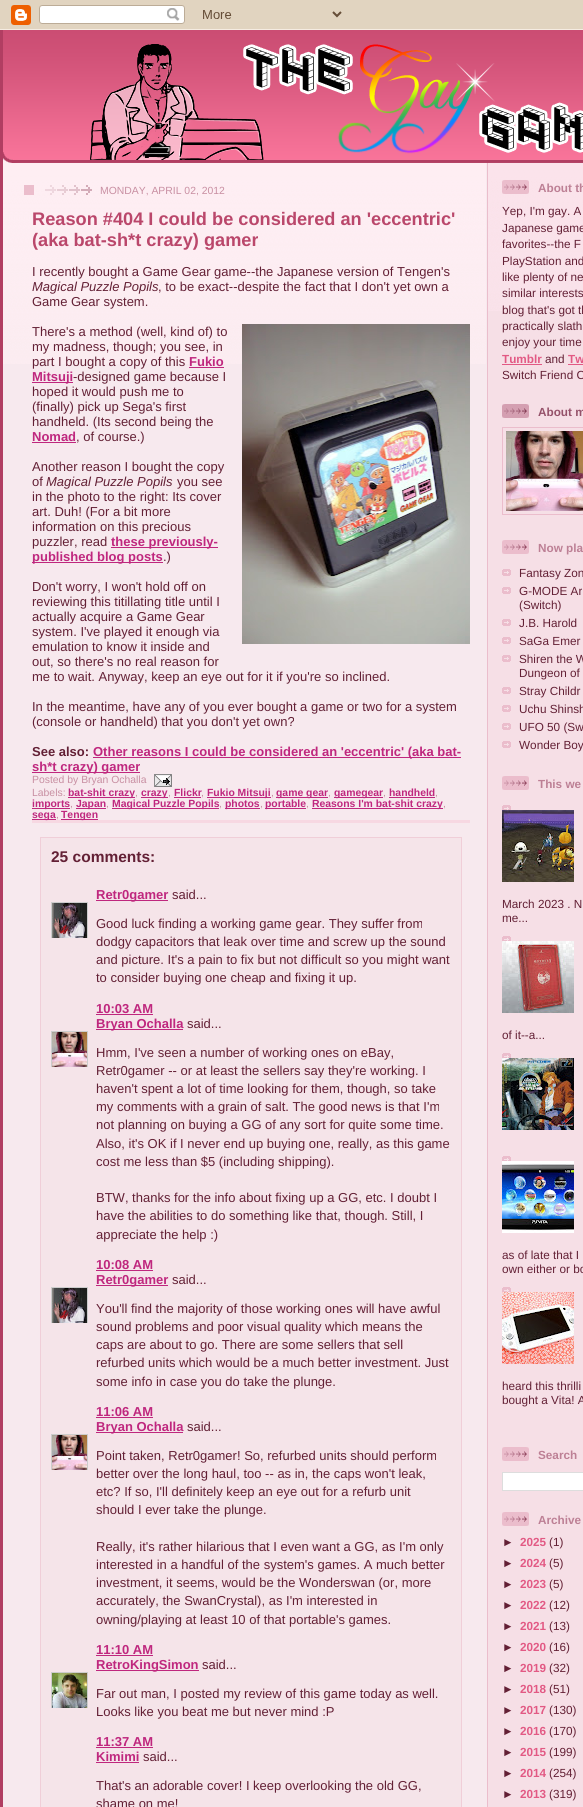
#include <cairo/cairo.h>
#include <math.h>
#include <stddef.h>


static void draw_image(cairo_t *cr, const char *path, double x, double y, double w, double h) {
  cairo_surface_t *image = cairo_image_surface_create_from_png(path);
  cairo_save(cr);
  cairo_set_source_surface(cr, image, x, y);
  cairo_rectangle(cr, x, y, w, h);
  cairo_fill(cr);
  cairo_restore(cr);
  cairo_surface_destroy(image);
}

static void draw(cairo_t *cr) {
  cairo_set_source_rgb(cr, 1, 1, 1);
  cairo_paint(cr);
  draw_image(cr, "images/1.png", 0, 0, 583, 30);
  draw_image(cr, "images/2.png", 0, 30, 583, 133);
  draw_image(cr, "images/3.png", 0, 163, 583, 1644);
  draw_image(cr, "images/4.png", 3, 163, 483, 201);
  cairo_set_source_rgb(cr, 235 / 255.0, 189 / 255.0, 204 / 255.0);
  cairo_rectangle(cr, 24, 185, 10, 10);
  cairo_fill(cr);
  draw_image(cr, "images/5.png", 45, 185, 47, 10);
  cairo_set_source_rgb(cr, 247 / 255.0, 216 / 255.0, 226 / 255.0);
  cairo_rectangle(cr, 32, 820, 438, 3);
  cairo_fill(cr);
  draw_image(cr, "images/6.png", 242, 324, 228, 320);
  cairo_set_source_rgb(cr, 191 / 255.0, 39 / 255.0, 126 / 255.0);
  cairo_rectangle(cr, 189, 367, 35, 1);
  cairo_fill(cr);
  cairo_rectangle(cr, 32, 382, 41, 1);
  cairo_fill(cr);
  cairo_rectangle(cr, 32, 442, 44, 1);
  cairo_fill(cr);
  cairo_rectangle(cr, 111, 547, 107, 1);
  cairo_fill(cr);
  cairo_rectangle(cr, 32, 562, 131, 1);
  cairo_fill(cr);
  cairo_rectangle(cr, 93, 757, 368, 1);
  cairo_fill(cr);
  cairo_rectangle(cr, 32, 772, 108, 1);
  cairo_fill(cr);
  draw_image(cr, "images/7.png", 154, 774, 18, 13);
  cairo_rectangle(cr, 68, 797, 67, 1);
  cairo_fill(cr);
  cairo_rectangle(cr, 141, 797, 27, 1);
  cairo_fill(cr);
  cairo_rectangle(cr, 174, 797, 27, 1);
  cairo_fill(cr);
  cairo_rectangle(cr, 207, 797, 64, 1);
  cairo_fill(cr);
  cairo_rectangle(cr, 276, 797, 52, 1);
  cairo_fill(cr);
  cairo_rectangle(cr, 334, 797, 49, 1);
  cairo_fill(cr);
  cairo_rectangle(cr, 389, 797, 46, 1);
  cairo_fill(cr);
  cairo_rectangle(cr, 32, 808, 38, 1);
  cairo_fill(cr);
  cairo_rectangle(cr, 76, 808, 30, 1);
  cairo_fill(cr);
  cairo_rectangle(cr, 112, 808, 107, 1);
  cairo_fill(cr);
  cairo_rectangle(cr, 225, 808, 35, 1);
  cairo_fill(cr);
  cairo_rectangle(cr, 265, 808, 41, 1);
  cairo_fill(cr);
  cairo_rectangle(cr, 312, 808, 131, 1);
  cairo_fill(cr);
  cairo_rectangle(cr, 32, 819, 24, 1);
  cairo_fill(cr);
  cairo_rectangle(cr, 61, 819, 37, 1);
  cairo_fill(cr);
  cairo_set_source_rgb(cr, 245 / 255.0, 228 / 255.0, 233 / 255.0);
  cairo_rectangle(cr, 40.5, 837.5, 421, 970);
  cairo_fill_preserve(cr);
  cairo_set_source_rgb(cr, 240 / 255.0, 206 / 255.0, 216 / 255.0);
  cairo_set_line_width(cr, 1);
  cairo_stroke(cr);
  cairo_set_source_rgb(cr, 191 / 255.0, 39 / 255.0, 126 / 255.0);
  cairo_rectangle(cr, 96, 900, 72, 1);
  cairo_fill(cr);
  cairo_save(cr);
  cairo_rectangle(cr, 51, 902, 37, 36);
  cairo_clip(cr);
  cairo_rectangle(cr, 51.5, 902.5, 36, 36);
  cairo_set_source_rgb(cr, 204 / 255.0, 204 / 255.0, 204 / 255.0);
  cairo_stroke(cr);
  cairo_restore(cr);
  draw_image(cr, "images/8.png", 52, 903, 35, 35);
  cairo_rectangle(cr, 96, 1014, 57, 1);
  cairo_fill(cr);
  cairo_rectangle(cr, 96, 1029, 87, 1);
  cairo_fill(cr);
  cairo_save(cr);
  cairo_rectangle(cr, 51, 1031, 37, 36);
  cairo_clip(cr);
  cairo_rectangle(cr, 51.5, 1031.5, 36, 36);
  cairo_set_source_rgb(cr, 204 / 255.0, 204 / 255.0, 204 / 255.0);
  cairo_stroke(cr);
  cairo_restore(cr);
  draw_image(cr, "images/9.png", 52, 1032, 35, 35);
  cairo_rectangle(cr, 96, 1270, 57, 1);
  cairo_fill(cr);
  cairo_rectangle(cr, 96, 1285, 72, 1);
  cairo_fill(cr);
  cairo_save(cr);
  cairo_rectangle(cr, 51, 1287, 37, 36);
  cairo_clip(cr);
  cairo_rectangle(cr, 51.5, 1287.5, 36, 36);
  cairo_set_source_rgb(cr, 204 / 255.0, 204 / 255.0, 204 / 255.0);
  cairo_stroke(cr);
  cairo_restore(cr);
  draw_image(cr, "images/8.png", 52, 1288, 35, 35);
  cairo_rectangle(cr, 96, 1417, 57, 1);
  cairo_fill(cr);
  cairo_rectangle(cr, 96, 1432, 87, 1);
  cairo_fill(cr);
  cairo_save(cr);
  cairo_rectangle(cr, 51, 1434, 37, 36);
  cairo_clip(cr);
  cairo_rectangle(cr, 51.5, 1434.5, 36, 36);
  cairo_set_source_rgb(cr, 204 / 255.0, 204 / 255.0, 204 / 255.0);
  cairo_stroke(cr);
  cairo_restore(cr);
  draw_image(cr, "images/10.png", 52, 1435, 35, 35);
  cairo_rectangle(cr, 96, 1655, 57, 1);
  cairo_fill(cr);
  cairo_rectangle(cr, 96, 1670, 103, 1);
  cairo_fill(cr);
  cairo_save(cr);
  cairo_rectangle(cr, 51, 1672, 37, 36);
  cairo_clip(cr);
  cairo_rectangle(cr, 51.5, 1672.5, 36, 36);
  cairo_set_source_rgb(cr, 204 / 255.0, 204 / 255.0, 204 / 255.0);
  cairo_stroke(cr);
  cairo_restore(cr);
  draw_image(cr, "images/11.png", 52, 1673, 35, 35);
  cairo_rectangle(cr, 96, 1747, 57, 1);
  cairo_fill(cr);
  cairo_rectangle(cr, 96, 1762, 43, 1);
  cairo_fill(cr);
  draw_image(cr, "images/12.png", 488, 163, 95, 148);
  draw_image(cr, "images/13.png", 502, 180, 27, 14);
  cairo_set_source_rgb(cr, 226 / 255.0, 89 / 255.0, 132 / 255.0);
  cairo_rectangle(cr, 502, 364, 40, 1);
  cairo_fill(cr);
  cairo_rectangle(cr, 568, 364, 15, 1);
  cairo_fill(cr);
  draw_image(cr, "images/14.png", 502, 404, 27, 14);
  cairo_rectangle(cr, 502.5, 427.5, 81, 87);
  cairo_set_source_rgb(cr, 235 / 255.0, 189 / 255.0, 204 / 255.0);
  cairo_stroke(cr);
  draw_image(cr, "images/15.png", 506, 431, 77, 80);
  draw_image(cr, "images/16.png", 502, 540, 27, 14);
  draw_image(cr, "images/17.png", 502, 569, 9, 7);
  draw_image(cr, "images/17.png", 502, 587, 9, 7);
  draw_image(cr, "images/17.png", 502, 619, 9, 7);
  draw_image(cr, "images/17.png", 502, 637, 9, 7);
  draw_image(cr, "images/17.png", 502, 655, 9, 7);
  draw_image(cr, "images/17.png", 502, 687, 9, 7);
  draw_image(cr, "images/17.png", 502, 705, 9, 7);
  draw_image(cr, "images/17.png", 502, 723, 9, 7);
  draw_image(cr, "images/17.png", 502, 741, 9, 7);
  draw_image(cr, "images/16.png", 502, 776, 27, 14);
  draw_image(cr, "images/18.png", 502, 805, 9, 5);
  draw_image(cr, "images/19.png", 502, 810, 72, 72);
  draw_image(cr, "images/18.png", 502, 936, 9, 5);
  draw_image(cr, "images/20.png", 502, 941, 72, 72);
  draw_image(cr, "images/18.png", 502, 1053, 9, 5);
  draw_image(cr, "images/21.png", 502, 1058, 72, 72);
  draw_image(cr, "images/18.png", 502, 1156, 9, 5);
  draw_image(cr, "images/22.png", 502, 1161, 72, 72);
  draw_image(cr, "images/18.png", 502, 1287, 9, 5);
  draw_image(cr, "images/23.png", 502, 1292, 72, 72);
  draw_image(cr, "images/16.png", 502, 1447, 27, 14);
  cairo_set_source_rgb(cr, 1, 1, 1);
  cairo_rectangle(cr, 502.5, 1472.5, 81, 18);
  cairo_fill_preserve(cr);
  cairo_set_source_rgb(cr, 221 / 255.0, 221 / 255.0, 221 / 255.0);
  cairo_stroke(cr);
  draw_image(cr, "images/16.png", 502, 1512, 27, 14);
  cairo_select_font_face(cr, "Liberation Sans", CAIRO_FONT_SLANT_NORMAL, CAIRO_FONT_WEIGHT_NORMAL);
  cairo_set_font_size(cr, 10.4);
  cairo_set_source_rgb(cr, 200 / 255.0, 143 / 255.0, 162 / 255.0);
  cairo_move_to(cr, 100, 194);
  cairo_show_text(cr, "MONDAY, APRIL 02, 2012");
  cairo_select_font_face(cr, "Liberation Sans", CAIRO_FONT_SLANT_NORMAL, CAIRO_FONT_WEIGHT_BOLD);
  cairo_set_font_size(cr, 18.2);
  cairo_set_source_rgb(cr, 186 / 255.0, 71 / 255.0, 107 / 255.0);
  cairo_move_to(cr, 32, 225);
  cairo_show_text(cr, "Reason #404 I could be considered an 'eccentric'");
  cairo_move_to(cr, 32, 246);
  cairo_show_text(cr, "(aka bat-sh*t crazy) gamer");
  cairo_select_font_face(cr, "Liberation Sans", CAIRO_FONT_SLANT_NORMAL, CAIRO_FONT_WEIGHT_NORMAL);
  cairo_set_font_size(cr, 13);
  cairo_set_source_rgb(cr, 99 / 255.0, 32 / 255.0, 53 / 255.0);
  cairo_move_to(cr, 32, 276);
  cairo_show_text(cr, "I recently bought a Game Gear game--the Japanese version of Tengen's");
  cairo_select_font_face(cr, "Liberation Sans", CAIRO_FONT_SLANT_ITALIC, CAIRO_FONT_WEIGHT_NORMAL);
  cairo_move_to(cr, 32, 291);
  cairo_show_text(cr, "Magical Puzzle Popils");
  cairo_select_font_face(cr, "Liberation Sans", CAIRO_FONT_SLANT_NORMAL, CAIRO_FONT_WEIGHT_NORMAL);
  cairo_move_to(cr, 158, 291);
  cairo_show_text(cr, ", to be exact--despite the fact that I don't yet own a");
  cairo_move_to(cr, 32, 306);
  cairo_show_text(cr, "Game Gear system.");
  cairo_move_to(cr, 32, 336);
  cairo_show_text(cr, "There's a method (well, kind of) to");
  cairo_move_to(cr, 32, 351);
  cairo_show_text(cr, "my madness, though; you see, in");
  cairo_move_to(cr, 32, 366);
  cairo_show_text(cr, "part I bought a copy of this");
  cairo_select_font_face(cr, "Liberation Sans", CAIRO_FONT_SLANT_NORMAL, CAIRO_FONT_WEIGHT_BOLD);
  cairo_set_source_rgb(cr, 191 / 255.0, 39 / 255.0, 126 / 255.0);
  cairo_move_to(cr, 189, 366);
  cairo_show_text(cr, "Fukio");
  cairo_move_to(cr, 32, 381);
  cairo_show_text(cr, "Mitsuji");
  cairo_select_font_face(cr, "Liberation Sans", CAIRO_FONT_SLANT_NORMAL, CAIRO_FONT_WEIGHT_NORMAL);
  cairo_set_source_rgb(cr, 99 / 255.0, 32 / 255.0, 53 / 255.0);
  cairo_move_to(cr, 73, 381);
  cairo_show_text(cr, "-designed game because I");
  cairo_move_to(cr, 32, 396);
  cairo_show_text(cr, "hoped it would push me to");
  cairo_move_to(cr, 32, 411);
  cairo_show_text(cr, "(finally) pick up Sega's first");
  cairo_move_to(cr, 32, 426);
  cairo_show_text(cr, "handheld. (Its second being the");
  cairo_select_font_face(cr, "Liberation Sans", CAIRO_FONT_SLANT_NORMAL, CAIRO_FONT_WEIGHT_BOLD);
  cairo_set_source_rgb(cr, 191 / 255.0, 39 / 255.0, 126 / 255.0);
  cairo_move_to(cr, 32, 441);
  cairo_show_text(cr, "Nomad");
  cairo_select_font_face(cr, "Liberation Sans", CAIRO_FONT_SLANT_NORMAL, CAIRO_FONT_WEIGHT_NORMAL);
  cairo_set_source_rgb(cr, 99 / 255.0, 32 / 255.0, 53 / 255.0);
  cairo_move_to(cr, 76, 441);
  cairo_show_text(cr, ", of course.)");
  cairo_move_to(cr, 32, 471);
  cairo_show_text(cr, "Another reason I bought the copy");
  cairo_move_to(cr, 32, 486);
  cairo_show_text(cr, "of");
  cairo_select_font_face(cr, "Liberation Sans", CAIRO_FONT_SLANT_ITALIC, CAIRO_FONT_WEIGHT_NORMAL);
  cairo_move_to(cr, 46, 486);
  cairo_show_text(cr, "Magical Puzzle Popils");
  cairo_select_font_face(cr, "Liberation Sans", CAIRO_FONT_SLANT_NORMAL, CAIRO_FONT_WEIGHT_NORMAL);
  cairo_move_to(cr, 177, 486);
  cairo_show_text(cr, "you see");
  cairo_move_to(cr, 32, 501);
  cairo_show_text(cr, "in the photo to the right: Its cover");
  cairo_move_to(cr, 32, 516);
  cairo_show_text(cr, "art. Duh! (For a bit more");
  cairo_move_to(cr, 32, 531);
  cairo_show_text(cr, "information on this precious");
  cairo_move_to(cr, 32, 546);
  cairo_show_text(cr, "puzzler, read");
  cairo_select_font_face(cr, "Liberation Sans", CAIRO_FONT_SLANT_NORMAL, CAIRO_FONT_WEIGHT_BOLD);
  cairo_set_source_rgb(cr, 191 / 255.0, 39 / 255.0, 126 / 255.0);
  cairo_move_to(cr, 111, 546);
  cairo_show_text(cr, "these previously-");
  cairo_move_to(cr, 32, 561);
  cairo_show_text(cr, "published blog posts");
  cairo_select_font_face(cr, "Liberation Sans", CAIRO_FONT_SLANT_NORMAL, CAIRO_FONT_WEIGHT_NORMAL);
  cairo_set_source_rgb(cr, 99 / 255.0, 32 / 255.0, 53 / 255.0);
  cairo_move_to(cr, 163, 561);
  cairo_show_text(cr, ".)");
  cairo_move_to(cr, 32, 591);
  cairo_show_text(cr, "Don't worry, I won't hold off on");
  cairo_move_to(cr, 32, 606);
  cairo_show_text(cr, "reviewing this titillating title until I");
  cairo_move_to(cr, 32, 621);
  cairo_show_text(cr, "actually acquire a Game Gear");
  cairo_move_to(cr, 32, 636);
  cairo_show_text(cr, "system. I've played it enough via");
  cairo_move_to(cr, 32, 651);
  cairo_show_text(cr, "emulation to know it inside and");
  cairo_move_to(cr, 32, 666);
  cairo_show_text(cr, "out, so there's no real reason for");
  cairo_move_to(cr, 32, 681);
  cairo_show_text(cr, "me to wait. Anyway, keep an eye out for it if you're so inclined.");
  cairo_move_to(cr, 32, 711);
  cairo_show_text(cr, "In the meantime, have any of you ever bought a game or two for a system");
  cairo_move_to(cr, 32, 726);
  cairo_show_text(cr, "(console or handheld) that you don't yet own?");
  cairo_select_font_face(cr, "Liberation Sans", CAIRO_FONT_SLANT_NORMAL, CAIRO_FONT_WEIGHT_BOLD);
  cairo_move_to(cr, 32, 756);
  cairo_show_text(cr, "See also:");
  cairo_set_source_rgb(cr, 191 / 255.0, 39 / 255.0, 126 / 255.0);
  cairo_move_to(cr, 93, 756);
  cairo_show_text(cr, "Other reasons I could be considered an 'eccentric' (aka bat-");
  cairo_move_to(cr, 32, 771);
  cairo_show_text(cr, "sh*t crazy) gamer");
  cairo_select_font_face(cr, "Liberation Sans", CAIRO_FONT_SLANT_NORMAL, CAIRO_FONT_WEIGHT_NORMAL);
  cairo_set_font_size(cr, 10.4);
  cairo_set_source_rgb(cr, 200 / 255.0, 143 / 255.0, 162 / 255.0);
  cairo_move_to(cr, 32, 783);
  cairo_show_text(cr, "Posted by Bryan Ochalla");
  cairo_move_to(cr, 32, 796);
  cairo_show_text(cr, "Labels:");
  cairo_select_font_face(cr, "Liberation Sans", CAIRO_FONT_SLANT_NORMAL, CAIRO_FONT_WEIGHT_BOLD);
  cairo_set_source_rgb(cr, 191 / 255.0, 39 / 255.0, 126 / 255.0);
  cairo_move_to(cr, 68, 796);
  cairo_show_text(cr, "bat-shit crazy");
  cairo_select_font_face(cr, "Liberation Sans", CAIRO_FONT_SLANT_NORMAL, CAIRO_FONT_WEIGHT_NORMAL);
  cairo_set_source_rgb(cr, 200 / 255.0, 143 / 255.0, 162 / 255.0);
  cairo_move_to(cr, 135, 796);
  cairo_show_text(cr, ",");
  cairo_select_font_face(cr, "Liberation Sans", CAIRO_FONT_SLANT_NORMAL, CAIRO_FONT_WEIGHT_BOLD);
  cairo_set_source_rgb(cr, 191 / 255.0, 39 / 255.0, 126 / 255.0);
  cairo_move_to(cr, 141, 796);
  cairo_show_text(cr, "crazy");
  cairo_select_font_face(cr, "Liberation Sans", CAIRO_FONT_SLANT_NORMAL, CAIRO_FONT_WEIGHT_NORMAL);
  cairo_set_source_rgb(cr, 200 / 255.0, 143 / 255.0, 162 / 255.0);
  cairo_move_to(cr, 168, 796);
  cairo_show_text(cr, ",");
  cairo_select_font_face(cr, "Liberation Sans", CAIRO_FONT_SLANT_NORMAL, CAIRO_FONT_WEIGHT_BOLD);
  cairo_set_source_rgb(cr, 191 / 255.0, 39 / 255.0, 126 / 255.0);
  cairo_move_to(cr, 174, 796);
  cairo_show_text(cr, "Flickr");
  cairo_select_font_face(cr, "Liberation Sans", CAIRO_FONT_SLANT_NORMAL, CAIRO_FONT_WEIGHT_NORMAL);
  cairo_set_source_rgb(cr, 200 / 255.0, 143 / 255.0, 162 / 255.0);
  cairo_move_to(cr, 201, 796);
  cairo_show_text(cr, ",");
  cairo_select_font_face(cr, "Liberation Sans", CAIRO_FONT_SLANT_NORMAL, CAIRO_FONT_WEIGHT_BOLD);
  cairo_set_source_rgb(cr, 191 / 255.0, 39 / 255.0, 126 / 255.0);
  cairo_move_to(cr, 207, 796);
  cairo_show_text(cr, "Fukio Mitsuji");
  cairo_select_font_face(cr, "Liberation Sans", CAIRO_FONT_SLANT_NORMAL, CAIRO_FONT_WEIGHT_NORMAL);
  cairo_set_source_rgb(cr, 200 / 255.0, 143 / 255.0, 162 / 255.0);
  cairo_move_to(cr, 271, 796);
  cairo_show_text(cr, ",");
  cairo_select_font_face(cr, "Liberation Sans", CAIRO_FONT_SLANT_NORMAL, CAIRO_FONT_WEIGHT_BOLD);
  cairo_set_source_rgb(cr, 191 / 255.0, 39 / 255.0, 126 / 255.0);
  cairo_move_to(cr, 276, 796);
  cairo_show_text(cr, "game gear");
  cairo_select_font_face(cr, "Liberation Sans", CAIRO_FONT_SLANT_NORMAL, CAIRO_FONT_WEIGHT_NORMAL);
  cairo_set_source_rgb(cr, 200 / 255.0, 143 / 255.0, 162 / 255.0);
  cairo_move_to(cr, 328, 796);
  cairo_show_text(cr, ",");
  cairo_select_font_face(cr, "Liberation Sans", CAIRO_FONT_SLANT_NORMAL, CAIRO_FONT_WEIGHT_BOLD);
  cairo_set_source_rgb(cr, 191 / 255.0, 39 / 255.0, 126 / 255.0);
  cairo_move_to(cr, 334, 796);
  cairo_show_text(cr, "gamegear");
  cairo_select_font_face(cr, "Liberation Sans", CAIRO_FONT_SLANT_NORMAL, CAIRO_FONT_WEIGHT_NORMAL);
  cairo_set_source_rgb(cr, 200 / 255.0, 143 / 255.0, 162 / 255.0);
  cairo_move_to(cr, 383, 796);
  cairo_show_text(cr, ",");
  cairo_select_font_face(cr, "Liberation Sans", CAIRO_FONT_SLANT_NORMAL, CAIRO_FONT_WEIGHT_BOLD);
  cairo_set_source_rgb(cr, 191 / 255.0, 39 / 255.0, 126 / 255.0);
  cairo_move_to(cr, 389, 796);
  cairo_show_text(cr, "handheld");
  cairo_select_font_face(cr, "Liberation Sans", CAIRO_FONT_SLANT_NORMAL, CAIRO_FONT_WEIGHT_NORMAL);
  cairo_set_source_rgb(cr, 200 / 255.0, 143 / 255.0, 162 / 255.0);
  cairo_move_to(cr, 435, 796);
  cairo_show_text(cr, ",");
  cairo_select_font_face(cr, "Liberation Sans", CAIRO_FONT_SLANT_NORMAL, CAIRO_FONT_WEIGHT_BOLD);
  cairo_set_source_rgb(cr, 191 / 255.0, 39 / 255.0, 126 / 255.0);
  cairo_move_to(cr, 32, 807);
  cairo_show_text(cr, "imports");
  cairo_select_font_face(cr, "Liberation Sans", CAIRO_FONT_SLANT_NORMAL, CAIRO_FONT_WEIGHT_NORMAL);
  cairo_set_source_rgb(cr, 200 / 255.0, 143 / 255.0, 162 / 255.0);
  cairo_move_to(cr, 70, 807);
  cairo_show_text(cr, ",");
  cairo_select_font_face(cr, "Liberation Sans", CAIRO_FONT_SLANT_NORMAL, CAIRO_FONT_WEIGHT_BOLD);
  cairo_set_source_rgb(cr, 191 / 255.0, 39 / 255.0, 126 / 255.0);
  cairo_move_to(cr, 76, 807);
  cairo_show_text(cr, "Japan");
  cairo_select_font_face(cr, "Liberation Sans", CAIRO_FONT_SLANT_NORMAL, CAIRO_FONT_WEIGHT_NORMAL);
  cairo_set_source_rgb(cr, 200 / 255.0, 143 / 255.0, 162 / 255.0);
  cairo_move_to(cr, 106, 807);
  cairo_show_text(cr, ",");
  cairo_select_font_face(cr, "Liberation Sans", CAIRO_FONT_SLANT_NORMAL, CAIRO_FONT_WEIGHT_BOLD);
  cairo_set_source_rgb(cr, 191 / 255.0, 39 / 255.0, 126 / 255.0);
  cairo_move_to(cr, 112, 807);
  cairo_show_text(cr, "Magical Puzzle Popils");
  cairo_select_font_face(cr, "Liberation Sans", CAIRO_FONT_SLANT_NORMAL, CAIRO_FONT_WEIGHT_NORMAL);
  cairo_set_source_rgb(cr, 200 / 255.0, 143 / 255.0, 162 / 255.0);
  cairo_move_to(cr, 219, 807);
  cairo_show_text(cr, ",");
  cairo_select_font_face(cr, "Liberation Sans", CAIRO_FONT_SLANT_NORMAL, CAIRO_FONT_WEIGHT_BOLD);
  cairo_set_source_rgb(cr, 191 / 255.0, 39 / 255.0, 126 / 255.0);
  cairo_move_to(cr, 225, 807);
  cairo_show_text(cr, "photos");
  cairo_select_font_face(cr, "Liberation Sans", CAIRO_FONT_SLANT_NORMAL, CAIRO_FONT_WEIGHT_NORMAL);
  cairo_set_source_rgb(cr, 200 / 255.0, 143 / 255.0, 162 / 255.0);
  cairo_move_to(cr, 260, 807);
  cairo_show_text(cr, ",");
  cairo_select_font_face(cr, "Liberation Sans", CAIRO_FONT_SLANT_NORMAL, CAIRO_FONT_WEIGHT_BOLD);
  cairo_set_source_rgb(cr, 191 / 255.0, 39 / 255.0, 126 / 255.0);
  cairo_move_to(cr, 265, 807);
  cairo_show_text(cr, "portable");
  cairo_select_font_face(cr, "Liberation Sans", CAIRO_FONT_SLANT_NORMAL, CAIRO_FONT_WEIGHT_NORMAL);
  cairo_set_source_rgb(cr, 200 / 255.0, 143 / 255.0, 162 / 255.0);
  cairo_move_to(cr, 306, 807);
  cairo_show_text(cr, ",");
  cairo_select_font_face(cr, "Liberation Sans", CAIRO_FONT_SLANT_NORMAL, CAIRO_FONT_WEIGHT_BOLD);
  cairo_set_source_rgb(cr, 191 / 255.0, 39 / 255.0, 126 / 255.0);
  cairo_move_to(cr, 312, 807);
  cairo_show_text(cr, "Reasons I'm bat-shit crazy");
  cairo_select_font_face(cr, "Liberation Sans", CAIRO_FONT_SLANT_NORMAL, CAIRO_FONT_WEIGHT_NORMAL);
  cairo_set_source_rgb(cr, 200 / 255.0, 143 / 255.0, 162 / 255.0);
  cairo_move_to(cr, 443, 807);
  cairo_show_text(cr, ",");
  cairo_select_font_face(cr, "Liberation Sans", CAIRO_FONT_SLANT_NORMAL, CAIRO_FONT_WEIGHT_BOLD);
  cairo_set_source_rgb(cr, 191 / 255.0, 39 / 255.0, 126 / 255.0);
  cairo_move_to(cr, 32, 818);
  cairo_show_text(cr, "sega");
  cairo_select_font_face(cr, "Liberation Sans", CAIRO_FONT_SLANT_NORMAL, CAIRO_FONT_WEIGHT_NORMAL);
  cairo_set_source_rgb(cr, 200 / 255.0, 143 / 255.0, 162 / 255.0);
  cairo_move_to(cr, 56, 818);
  cairo_show_text(cr, ",");
  cairo_select_font_face(cr, "Liberation Sans", CAIRO_FONT_SLANT_NORMAL, CAIRO_FONT_WEIGHT_BOLD);
  cairo_set_source_rgb(cr, 191 / 255.0, 39 / 255.0, 126 / 255.0);
  cairo_move_to(cr, 61, 818);
  cairo_show_text(cr, "Tengen");
  cairo_set_font_size(cr, 15.5);
  cairo_set_source_rgb(cr, 99 / 255.0, 32 / 255.0, 53 / 255.0);
  cairo_move_to(cr, 51, 862);
  cairo_show_text(cr, "25 comments:");
  cairo_set_font_size(cr, 13);
  cairo_set_source_rgb(cr, 191 / 255.0, 39 / 255.0, 126 / 255.0);
  cairo_move_to(cr, 96, 899);
  cairo_show_text(cr, "Retr0gamer");
  cairo_select_font_face(cr, "Liberation Sans", CAIRO_FONT_SLANT_NORMAL, CAIRO_FONT_WEIGHT_NORMAL);
  cairo_set_source_rgb(cr, 99 / 255.0, 32 / 255.0, 53 / 255.0);
  cairo_move_to(cr, 172, 899);
  cairo_show_text(cr, "said...");
  cairo_move_to(cr, 96, 928);
  cairo_show_text(cr, "Good luck finding a working game gear. They suffer from");
  cairo_move_to(cr, 96, 946);
  cairo_show_text(cr, "dodgy capacitors that leak over time and screw up the sound");
  cairo_move_to(cr, 96, 964);
  cairo_show_text(cr, "and picture. It's a pain to fix but not difficult so you might want");
  cairo_move_to(cr, 96, 982);
  cairo_show_text(cr, "to consider buying one cheap and fixing it up.");
  cairo_select_font_face(cr, "Liberation Sans", CAIRO_FONT_SLANT_NORMAL, CAIRO_FONT_WEIGHT_BOLD);
  cairo_set_source_rgb(cr, 191 / 255.0, 39 / 255.0, 126 / 255.0);
  cairo_move_to(cr, 96, 1013);
  cairo_show_text(cr, "10:03 AM");
  cairo_move_to(cr, 96, 1028);
  cairo_show_text(cr, "Bryan Ochalla");
  cairo_select_font_face(cr, "Liberation Sans", CAIRO_FONT_SLANT_NORMAL, CAIRO_FONT_WEIGHT_NORMAL);
  cairo_set_source_rgb(cr, 99 / 255.0, 32 / 255.0, 53 / 255.0);
  cairo_move_to(cr, 187, 1028);
  cairo_show_text(cr, "said...");
  cairo_move_to(cr, 96, 1057);
  cairo_show_text(cr, "Hmm, I've seen a number of working ones on eBay,");
  cairo_move_to(cr, 96, 1075);
  cairo_show_text(cr, "Retr0gamer -- or at least the sellers say they're working. I");
  cairo_move_to(cr, 96, 1093);
  cairo_show_text(cr, "haven't spent a lot of time looking for them, though, so take");
  cairo_move_to(cr, 96, 1111);
  cairo_show_text(cr, "my comments with a grain of salt. The good news is that I'm");
  cairo_move_to(cr, 96, 1129);
  cairo_show_text(cr, "not planning on buying a GG of any sort for quite some time.");
  cairo_move_to(cr, 96, 1148);
  cairo_show_text(cr, "Also, it's OK if I never end up buying one, really, as this game");
  cairo_move_to(cr, 96, 1166);
  cairo_show_text(cr, "cost me less than $5 (including shipping).");
  cairo_move_to(cr, 96, 1202);
  cairo_show_text(cr, "BTW, thanks for the info about fixing up a GG, etc. I doubt I");
  cairo_move_to(cr, 96, 1220);
  cairo_show_text(cr, "have the abilities to do something like that, though. Still, I");
  cairo_move_to(cr, 96, 1239);
  cairo_show_text(cr, "appreciate the help :)");
  cairo_select_font_face(cr, "Liberation Sans", CAIRO_FONT_SLANT_NORMAL, CAIRO_FONT_WEIGHT_BOLD);
  cairo_set_source_rgb(cr, 191 / 255.0, 39 / 255.0, 126 / 255.0);
  cairo_move_to(cr, 96, 1269);
  cairo_show_text(cr, "10:08 AM");
  cairo_move_to(cr, 96, 1284);
  cairo_show_text(cr, "Retr0gamer");
  cairo_select_font_face(cr, "Liberation Sans", CAIRO_FONT_SLANT_NORMAL, CAIRO_FONT_WEIGHT_NORMAL);
  cairo_set_source_rgb(cr, 99 / 255.0, 32 / 255.0, 53 / 255.0);
  cairo_move_to(cr, 172, 1284);
  cairo_show_text(cr, "said...");
  cairo_move_to(cr, 96, 1313);
  cairo_show_text(cr, "You'll find the majority of those working ones will have awful");
  cairo_move_to(cr, 96, 1331);
  cairo_show_text(cr, "sound problems and poor visual quality which means the");
  cairo_move_to(cr, 96, 1349);
  cairo_show_text(cr, "caps are about to go. There are some sellers that sell");
  cairo_move_to(cr, 96, 1367);
  cairo_show_text(cr, "refurbed units which would be a much better investment. Just");
  cairo_move_to(cr, 96, 1386);
  cairo_show_text(cr, "some info in case you do take the plunge.");
  cairo_select_font_face(cr, "Liberation Sans", CAIRO_FONT_SLANT_NORMAL, CAIRO_FONT_WEIGHT_BOLD);
  cairo_set_source_rgb(cr, 191 / 255.0, 39 / 255.0, 126 / 255.0);
  cairo_move_to(cr, 96, 1416);
  cairo_show_text(cr, "11:06 AM");
  cairo_move_to(cr, 96, 1431);
  cairo_show_text(cr, "Bryan Ochalla");
  cairo_select_font_face(cr, "Liberation Sans", CAIRO_FONT_SLANT_NORMAL, CAIRO_FONT_WEIGHT_NORMAL);
  cairo_set_source_rgb(cr, 99 / 255.0, 32 / 255.0, 53 / 255.0);
  cairo_move_to(cr, 187, 1431);
  cairo_show_text(cr, "said...");
  cairo_move_to(cr, 96, 1460);
  cairo_show_text(cr, "Point taken, Retr0gamer! So, refurbed units should perform");
  cairo_move_to(cr, 96, 1478);
  cairo_show_text(cr, "better over the long haul, too -- as in, the caps won't leak,");
  cairo_move_to(cr, 96, 1496);
  cairo_show_text(cr, "etc? If so, I'll definitely keep an eye out for a refurb unit");
  cairo_move_to(cr, 96, 1514);
  cairo_show_text(cr, "should I ever take the plunge.");
  cairo_move_to(cr, 96, 1551);
  cairo_show_text(cr, "Really, it's rather hilarious that I even want a GG, as I'm only");
  cairo_move_to(cr, 96, 1569);
  cairo_show_text(cr, "interested in a handful of the system's games. A much better");
  cairo_move_to(cr, 96, 1587);
  cairo_show_text(cr, "investment, it seems, would be the Wonderswan (or, more");
  cairo_move_to(cr, 96, 1605);
  cairo_show_text(cr, "accurately, the SwanCrystal), as I'm interested in");
  cairo_move_to(cr, 96, 1624);
  cairo_show_text(cr, "owning/playing at least 10 of that portable's games.");
  cairo_select_font_face(cr, "Liberation Sans", CAIRO_FONT_SLANT_NORMAL, CAIRO_FONT_WEIGHT_BOLD);
  cairo_set_source_rgb(cr, 191 / 255.0, 39 / 255.0, 126 / 255.0);
  cairo_move_to(cr, 96, 1654);
  cairo_show_text(cr, "11:10 AM");
  cairo_move_to(cr, 96, 1669);
  cairo_show_text(cr, "RetroKingSimon");
  cairo_select_font_face(cr, "Liberation Sans", CAIRO_FONT_SLANT_NORMAL, CAIRO_FONT_WEIGHT_NORMAL);
  cairo_set_source_rgb(cr, 99 / 255.0, 32 / 255.0, 53 / 255.0);
  cairo_move_to(cr, 202, 1669);
  cairo_show_text(cr, "said...");
  cairo_move_to(cr, 96, 1698);
  cairo_show_text(cr, "Far out man, I posted my review of this game today as well.");
  cairo_move_to(cr, 96, 1716);
  cairo_show_text(cr, "Looks like you beat me but never mind :P");
  cairo_select_font_face(cr, "Liberation Sans", CAIRO_FONT_SLANT_NORMAL, CAIRO_FONT_WEIGHT_BOLD);
  cairo_set_source_rgb(cr, 191 / 255.0, 39 / 255.0, 126 / 255.0);
  cairo_move_to(cr, 96, 1746);
  cairo_show_text(cr, "11:37 AM");
  cairo_move_to(cr, 96, 1761);
  cairo_show_text(cr, "Kimimi");
  cairo_select_font_face(cr, "Liberation Sans", CAIRO_FONT_SLANT_NORMAL, CAIRO_FONT_WEIGHT_NORMAL);
  cairo_set_source_rgb(cr, 99 / 255.0, 32 / 255.0, 53 / 255.0);
  cairo_move_to(cr, 143, 1761);
  cairo_show_text(cr, "said...");
  cairo_move_to(cr, 96, 1790);
  cairo_show_text(cr, "That's an adorable cover! I keep overlooking the old GG,");
  cairo_move_to(cr, 96, 1808);
  cairo_show_text(cr, "shame on me!");
  cairo_select_font_face(cr, "Liberation Sans", CAIRO_FONT_SLANT_NORMAL, CAIRO_FONT_WEIGHT_BOLD);
  cairo_set_font_size(cr, 11.75);
  cairo_set_source_rgb(cr, 189 / 255.0, 128 / 255.0, 149 / 255.0);
  cairo_move_to(cr, 538, 192);
  cairo_show_text(cr, "About th");
  cairo_select_font_face(cr, "Liberation Sans", CAIRO_FONT_SLANT_NORMAL, CAIRO_FONT_WEIGHT_NORMAL);
  cairo_set_source_rgb(cr, 99 / 255.0, 32 / 255.0, 53 / 255.0);
  cairo_move_to(cr, 502, 215);
  cairo_show_text(cr, "Yep, I'm gay. A");
  cairo_move_to(cr, 502, 232);
  cairo_show_text(cr, "Japanese game");
  cairo_move_to(cr, 502, 248);
  cairo_show_text(cr, "favorites--the F");
  cairo_move_to(cr, 502, 265);
  cairo_show_text(cr, "PlayStation and");
  cairo_move_to(cr, 502, 281);
  cairo_show_text(cr, "like plenty of ne");
  cairo_move_to(cr, 502, 297);
  cairo_show_text(cr, "similar interests");
  cairo_move_to(cr, 502, 314);
  cairo_show_text(cr, "blog that's got th");
  cairo_move_to(cr, 502, 330);
  cairo_show_text(cr, "practically slath");
  cairo_move_to(cr, 502, 346);
  cairo_show_text(cr, "enjoy your time");
  cairo_select_font_face(cr, "Liberation Sans", CAIRO_FONT_SLANT_NORMAL, CAIRO_FONT_WEIGHT_BOLD);
  cairo_set_source_rgb(cr, 226 / 255.0, 89 / 255.0, 132 / 255.0);
  cairo_move_to(cr, 502, 363);
  cairo_show_text(cr, "Tumblr");
  cairo_select_font_face(cr, "Liberation Sans", CAIRO_FONT_SLANT_NORMAL, CAIRO_FONT_WEIGHT_NORMAL);
  cairo_set_source_rgb(cr, 99 / 255.0, 32 / 255.0, 53 / 255.0);
  cairo_move_to(cr, 545, 363);
  cairo_show_text(cr, "and");
  cairo_select_font_face(cr, "Liberation Sans", CAIRO_FONT_SLANT_NORMAL, CAIRO_FONT_WEIGHT_BOLD);
  cairo_set_source_rgb(cr, 226 / 255.0, 89 / 255.0, 132 / 255.0);
  cairo_move_to(cr, 568, 363);
  cairo_show_text(cr, "Tw");
  cairo_select_font_face(cr, "Liberation Sans", CAIRO_FONT_SLANT_NORMAL, CAIRO_FONT_WEIGHT_NORMAL);
  cairo_set_source_rgb(cr, 99 / 255.0, 32 / 255.0, 53 / 255.0);
  cairo_move_to(cr, 502, 379);
  cairo_show_text(cr, "Switch Friend C");
  cairo_select_font_face(cr, "Liberation Sans", CAIRO_FONT_SLANT_NORMAL, CAIRO_FONT_WEIGHT_BOLD);
  cairo_set_source_rgb(cr, 149 / 255.0, 82 / 255.0, 106 / 255.0);
  cairo_move_to(cr, 538, 416);
  cairo_show_text(cr, "About m");
  cairo_set_source_rgb(cr, 189 / 255.0, 128 / 255.0, 149 / 255.0);
  cairo_move_to(cr, 538, 552);
  cairo_show_text(cr, "Now pla");
  cairo_select_font_face(cr, "Liberation Sans", CAIRO_FONT_SLANT_NORMAL, CAIRO_FONT_WEIGHT_NORMAL);
  cairo_set_source_rgb(cr, 99 / 255.0, 32 / 255.0, 53 / 255.0);
  cairo_move_to(cr, 519, 577);
  cairo_show_text(cr, "Fantasy Zon");
  cairo_move_to(cr, 519, 595);
  cairo_show_text(cr, "G-MODE Ar");
  cairo_move_to(cr, 519, 609);
  cairo_show_text(cr, "(Switch)");
  cairo_move_to(cr, 519, 627);
  cairo_show_text(cr, "J.B. Harold");
  cairo_move_to(cr, 519, 645);
  cairo_show_text(cr, "SaGa Emer");
  cairo_move_to(cr, 519, 663);
  cairo_show_text(cr, "Shiren the W");
  cairo_move_to(cr, 519, 677);
  cairo_show_text(cr, "Dungeon of");
  cairo_move_to(cr, 519, 695);
  cairo_show_text(cr, "Stray Childr");
  cairo_move_to(cr, 519, 713);
  cairo_show_text(cr, "Uchu Shinsh");
  cairo_move_to(cr, 519, 731);
  cairo_show_text(cr, "UFO 50 (Sw");
  cairo_move_to(cr, 519, 749);
  cairo_show_text(cr, "Wonder Boy");
  cairo_select_font_face(cr, "Liberation Sans", CAIRO_FONT_SLANT_NORMAL, CAIRO_FONT_WEIGHT_BOLD);
  cairo_set_source_rgb(cr, 189 / 255.0, 128 / 255.0, 149 / 255.0);
  cairo_move_to(cr, 538, 788);
  cairo_show_text(cr, "This we");
  cairo_select_font_face(cr, "Liberation Sans", CAIRO_FONT_SLANT_NORMAL, CAIRO_FONT_WEIGHT_NORMAL);
  cairo_set_source_rgb(cr, 99 / 255.0, 32 / 255.0, 53 / 255.0);
  cairo_move_to(cr, 502, 908);
  cairo_show_text(cr, "March 2023 . N");
  cairo_move_to(cr, 502, 922);
  cairo_show_text(cr, "me...");
  cairo_move_to(cr, 502, 1039);
  cairo_show_text(cr, "of it--a...");
  cairo_move_to(cr, 502, 1259);
  cairo_show_text(cr, "as of late that I");
  cairo_move_to(cr, 502, 1273);
  cairo_show_text(cr, "own either or bo");
  cairo_move_to(cr, 502, 1390);
  cairo_show_text(cr, "heard this thrilli");
  cairo_move_to(cr, 502, 1404);
  cairo_show_text(cr, "bought a Vita! A");
  cairo_select_font_face(cr, "Liberation Sans", CAIRO_FONT_SLANT_NORMAL, CAIRO_FONT_WEIGHT_BOLD);
  cairo_set_source_rgb(cr, 189 / 255.0, 128 / 255.0, 149 / 255.0);
  cairo_move_to(cr, 538, 1459);
  cairo_show_text(cr, "Search");
  cairo_move_to(cr, 538, 1524);
  cairo_show_text(cr, "Archive");
  cairo_set_source_rgb(cr, 99 / 255.0, 32 / 255.0, 53 / 255.0);
  cairo_move_to(cr, 502, 1546);
  cairo_show_text(cr, "►");
  cairo_set_source_rgb(cr, 226 / 255.0, 89 / 255.0, 132 / 255.0);
  cairo_move_to(cr, 520, 1546);
  cairo_show_text(cr, "2025");
  cairo_select_font_face(cr, "Liberation Sans", CAIRO_FONT_SLANT_NORMAL, CAIRO_FONT_WEIGHT_NORMAL);
  cairo_set_source_rgb(cr, 99 / 255.0, 32 / 255.0, 53 / 255.0);
  cairo_move_to(cr, 549, 1546);
  cairo_show_text(cr, "(1)");
  cairo_select_font_face(cr, "Liberation Sans", CAIRO_FONT_SLANT_NORMAL, CAIRO_FONT_WEIGHT_BOLD);
  cairo_move_to(cr, 502, 1567);
  cairo_show_text(cr, "►");
  cairo_set_source_rgb(cr, 226 / 255.0, 89 / 255.0, 132 / 255.0);
  cairo_move_to(cr, 520, 1567);
  cairo_show_text(cr, "2024");
  cairo_select_font_face(cr, "Liberation Sans", CAIRO_FONT_SLANT_NORMAL, CAIRO_FONT_WEIGHT_NORMAL);
  cairo_set_source_rgb(cr, 99 / 255.0, 32 / 255.0, 53 / 255.0);
  cairo_move_to(cr, 549, 1567);
  cairo_show_text(cr, "(5)");
  cairo_select_font_face(cr, "Liberation Sans", CAIRO_FONT_SLANT_NORMAL, CAIRO_FONT_WEIGHT_BOLD);
  cairo_move_to(cr, 502, 1588);
  cairo_show_text(cr, "►");
  cairo_set_source_rgb(cr, 226 / 255.0, 89 / 255.0, 132 / 255.0);
  cairo_move_to(cr, 520, 1588);
  cairo_show_text(cr, "2023");
  cairo_select_font_face(cr, "Liberation Sans", CAIRO_FONT_SLANT_NORMAL, CAIRO_FONT_WEIGHT_NORMAL);
  cairo_set_source_rgb(cr, 99 / 255.0, 32 / 255.0, 53 / 255.0);
  cairo_move_to(cr, 549, 1588);
  cairo_show_text(cr, "(5)");
  cairo_select_font_face(cr, "Liberation Sans", CAIRO_FONT_SLANT_NORMAL, CAIRO_FONT_WEIGHT_BOLD);
  cairo_move_to(cr, 502, 1609);
  cairo_show_text(cr, "►");
  cairo_set_source_rgb(cr, 226 / 255.0, 89 / 255.0, 132 / 255.0);
  cairo_move_to(cr, 520, 1609);
  cairo_show_text(cr, "2022");
  cairo_select_font_face(cr, "Liberation Sans", CAIRO_FONT_SLANT_NORMAL, CAIRO_FONT_WEIGHT_NORMAL);
  cairo_set_source_rgb(cr, 99 / 255.0, 32 / 255.0, 53 / 255.0);
  cairo_move_to(cr, 549, 1609);
  cairo_show_text(cr, "(12)");
  cairo_select_font_face(cr, "Liberation Sans", CAIRO_FONT_SLANT_NORMAL, CAIRO_FONT_WEIGHT_BOLD);
  cairo_move_to(cr, 502, 1630);
  cairo_show_text(cr, "►");
  cairo_set_source_rgb(cr, 226 / 255.0, 89 / 255.0, 132 / 255.0);
  cairo_move_to(cr, 520, 1630);
  cairo_show_text(cr, "2021");
  cairo_select_font_face(cr, "Liberation Sans", CAIRO_FONT_SLANT_NORMAL, CAIRO_FONT_WEIGHT_NORMAL);
  cairo_set_source_rgb(cr, 99 / 255.0, 32 / 255.0, 53 / 255.0);
  cairo_move_to(cr, 549, 1630);
  cairo_show_text(cr, "(13)");
  cairo_select_font_face(cr, "Liberation Sans", CAIRO_FONT_SLANT_NORMAL, CAIRO_FONT_WEIGHT_BOLD);
  cairo_move_to(cr, 502, 1651);
  cairo_show_text(cr, "►");
  cairo_set_source_rgb(cr, 226 / 255.0, 89 / 255.0, 132 / 255.0);
  cairo_move_to(cr, 520, 1651);
  cairo_show_text(cr, "2020");
  cairo_select_font_face(cr, "Liberation Sans", CAIRO_FONT_SLANT_NORMAL, CAIRO_FONT_WEIGHT_NORMAL);
  cairo_set_source_rgb(cr, 99 / 255.0, 32 / 255.0, 53 / 255.0);
  cairo_move_to(cr, 549, 1651);
  cairo_show_text(cr, "(16)");
  cairo_select_font_face(cr, "Liberation Sans", CAIRO_FONT_SLANT_NORMAL, CAIRO_FONT_WEIGHT_BOLD);
  cairo_move_to(cr, 502, 1672);
  cairo_show_text(cr, "►");
  cairo_set_source_rgb(cr, 226 / 255.0, 89 / 255.0, 132 / 255.0);
  cairo_move_to(cr, 520, 1672);
  cairo_show_text(cr, "2019");
  cairo_select_font_face(cr, "Liberation Sans", CAIRO_FONT_SLANT_NORMAL, CAIRO_FONT_WEIGHT_NORMAL);
  cairo_set_source_rgb(cr, 99 / 255.0, 32 / 255.0, 53 / 255.0);
  cairo_move_to(cr, 549, 1672);
  cairo_show_text(cr, "(32)");
  cairo_select_font_face(cr, "Liberation Sans", CAIRO_FONT_SLANT_NORMAL, CAIRO_FONT_WEIGHT_BOLD);
  cairo_move_to(cr, 502, 1693);
  cairo_show_text(cr, "►");
  cairo_set_source_rgb(cr, 226 / 255.0, 89 / 255.0, 132 / 255.0);
  cairo_move_to(cr, 520, 1693);
  cairo_show_text(cr, "2018");
  cairo_select_font_face(cr, "Liberation Sans", CAIRO_FONT_SLANT_NORMAL, CAIRO_FONT_WEIGHT_NORMAL);
  cairo_set_source_rgb(cr, 99 / 255.0, 32 / 255.0, 53 / 255.0);
  cairo_move_to(cr, 549, 1693);
  cairo_show_text(cr, "(51)");
  cairo_select_font_face(cr, "Liberation Sans", CAIRO_FONT_SLANT_NORMAL, CAIRO_FONT_WEIGHT_BOLD);
  cairo_move_to(cr, 502, 1714);
  cairo_show_text(cr, "►");
  cairo_set_source_rgb(cr, 226 / 255.0, 89 / 255.0, 132 / 255.0);
  cairo_move_to(cr, 520, 1714);
  cairo_show_text(cr, "2017");
  cairo_select_font_face(cr, "Liberation Sans", CAIRO_FONT_SLANT_NORMAL, CAIRO_FONT_WEIGHT_NORMAL);
  cairo_set_source_rgb(cr, 99 / 255.0, 32 / 255.0, 53 / 255.0);
  cairo_move_to(cr, 549, 1714);
  cairo_show_text(cr, "(130)");
  cairo_select_font_face(cr, "Liberation Sans", CAIRO_FONT_SLANT_NORMAL, CAIRO_FONT_WEIGHT_BOLD);
  cairo_move_to(cr, 502, 1735);
  cairo_show_text(cr, "►");
  cairo_set_source_rgb(cr, 226 / 255.0, 89 / 255.0, 132 / 255.0);
  cairo_move_to(cr, 520, 1735);
  cairo_show_text(cr, "2016");
  cairo_select_font_face(cr, "Liberation Sans", CAIRO_FONT_SLANT_NORMAL, CAIRO_FONT_WEIGHT_NORMAL);
  cairo_set_source_rgb(cr, 99 / 255.0, 32 / 255.0, 53 / 255.0);
  cairo_move_to(cr, 549, 1735);
  cairo_show_text(cr, "(170)");
  cairo_select_font_face(cr, "Liberation Sans", CAIRO_FONT_SLANT_NORMAL, CAIRO_FONT_WEIGHT_BOLD);
  cairo_move_to(cr, 502, 1756);
  cairo_show_text(cr, "►");
  cairo_set_source_rgb(cr, 226 / 255.0, 89 / 255.0, 132 / 255.0);
  cairo_move_to(cr, 520, 1756);
  cairo_show_text(cr, "2015");
  cairo_select_font_face(cr, "Liberation Sans", CAIRO_FONT_SLANT_NORMAL, CAIRO_FONT_WEIGHT_NORMAL);
  cairo_set_source_rgb(cr, 99 / 255.0, 32 / 255.0, 53 / 255.0);
  cairo_move_to(cr, 549, 1756);
  cairo_show_text(cr, "(199)");
  cairo_select_font_face(cr, "Liberation Sans", CAIRO_FONT_SLANT_NORMAL, CAIRO_FONT_WEIGHT_BOLD);
  cairo_move_to(cr, 502, 1777);
  cairo_show_text(cr, "►");
  cairo_set_source_rgb(cr, 226 / 255.0, 89 / 255.0, 132 / 255.0);
  cairo_move_to(cr, 520, 1777);
  cairo_show_text(cr, "2014");
  cairo_select_font_face(cr, "Liberation Sans", CAIRO_FONT_SLANT_NORMAL, CAIRO_FONT_WEIGHT_NORMAL);
  cairo_set_source_rgb(cr, 99 / 255.0, 32 / 255.0, 53 / 255.0);
  cairo_move_to(cr, 549, 1777);
  cairo_show_text(cr, "(254)");
  cairo_select_font_face(cr, "Liberation Sans", CAIRO_FONT_SLANT_NORMAL, CAIRO_FONT_WEIGHT_BOLD);
  cairo_move_to(cr, 502, 1798);
  cairo_show_text(cr, "►");
  cairo_set_source_rgb(cr, 226 / 255.0, 89 / 255.0, 132 / 255.0);
  cairo_move_to(cr, 520, 1798);
  cairo_show_text(cr, "2013");
  cairo_select_font_face(cr, "Liberation Sans", CAIRO_FONT_SLANT_NORMAL, CAIRO_FONT_WEIGHT_NORMAL);
  cairo_set_source_rgb(cr, 99 / 255.0, 32 / 255.0, 53 / 255.0);
  cairo_move_to(cr, 549, 1798);
  cairo_show_text(cr, "(319)");
}

int main(void) {
  cairo_surface_t *surface = cairo_image_surface_create(CAIRO_FORMAT_RGB24, 583, 1807);
  cairo_t *cr = cairo_create(surface);
  cairo_font_options_t *options = cairo_font_options_create();
  cairo_font_options_set_hint_metrics(options, CAIRO_HINT_METRICS_OFF);
  cairo_font_options_set_hint_style(options, CAIRO_HINT_STYLE_NONE);
  cairo_set_font_options(cr, options);
  cairo_set_miter_limit(cr, 4);
  draw(cr);
  cairo_surface_write_to_png(surface, "out.png");
  cairo_font_options_destroy(options);
  cairo_destroy(cr);
  cairo_surface_destroy(surface);
  return 0;
}
